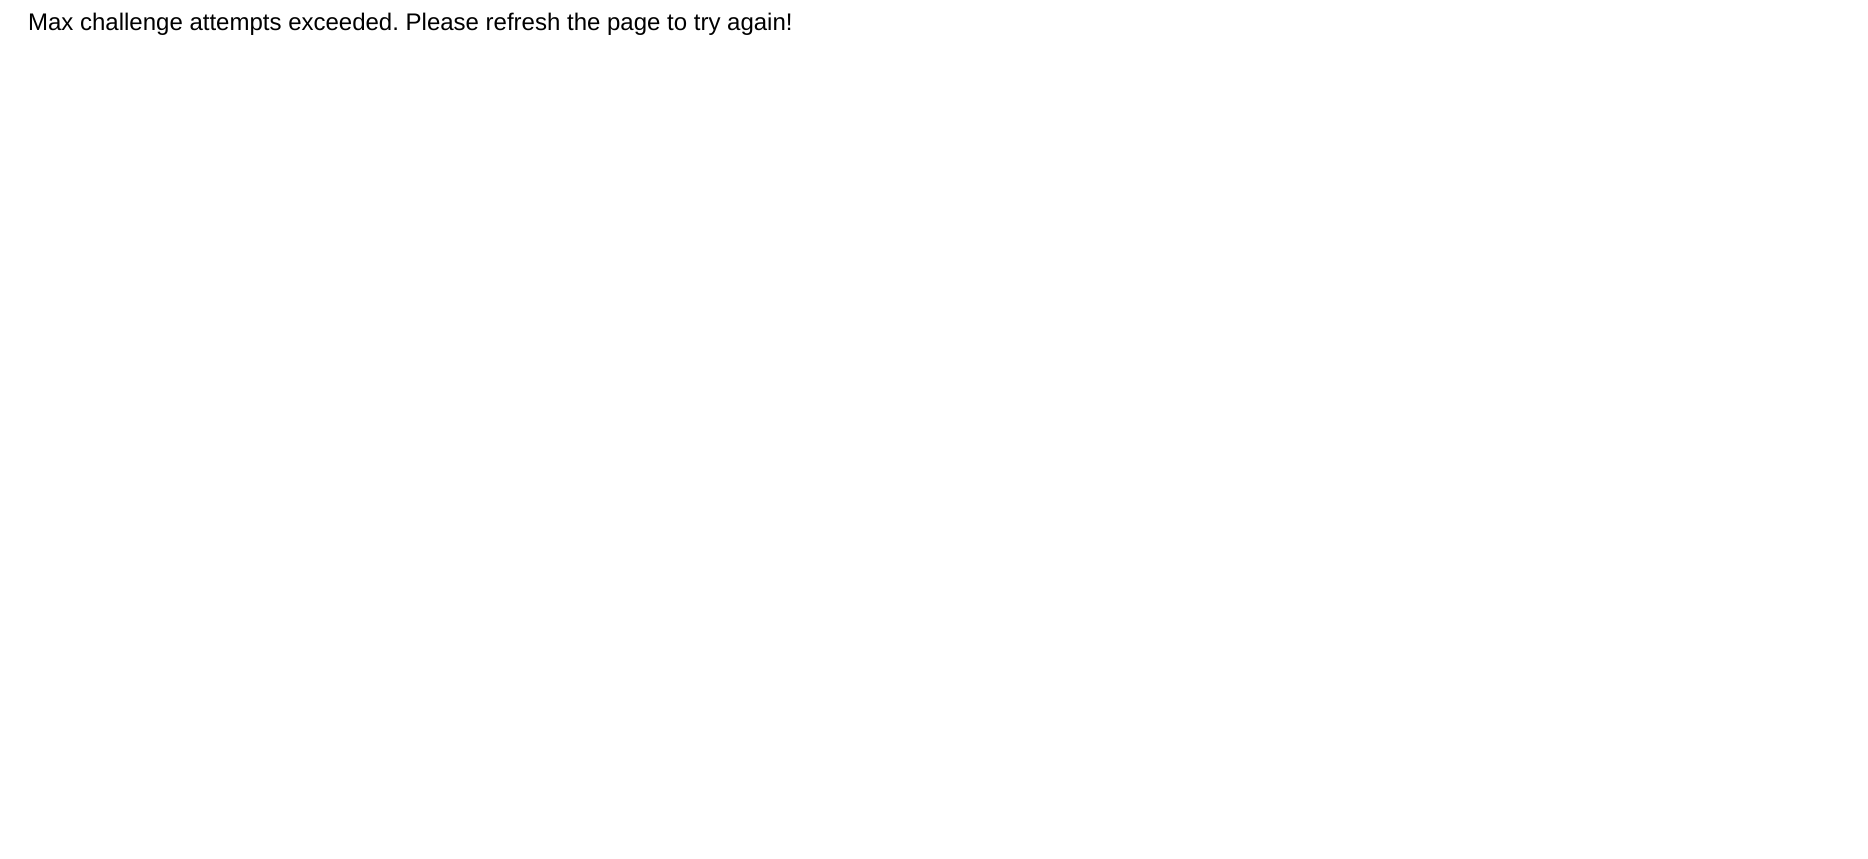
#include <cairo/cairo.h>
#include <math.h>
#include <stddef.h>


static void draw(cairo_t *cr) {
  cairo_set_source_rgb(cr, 1, 1, 1);
  cairo_paint(cr);
  cairo_select_font_face(cr, "Liberation Sans", CAIRO_FONT_SLANT_NORMAL, CAIRO_FONT_WEIGHT_NORMAL);
  cairo_set_font_size(cr, 24);
  cairo_set_source_rgb(cr, 0, 0, 0);
  cairo_move_to(cr, 28, 30);
  cairo_show_text(cr, "Max challenge attempts exceeded. Please refresh the page to try again!");
}

int main(void) {
  cairo_surface_t *surface = cairo_image_surface_create(CAIRO_FORMAT_RGB24, 1868, 859);
  cairo_t *cr = cairo_create(surface);
  cairo_font_options_t *options = cairo_font_options_create();
  cairo_font_options_set_hint_metrics(options, CAIRO_HINT_METRICS_OFF);
  cairo_font_options_set_hint_style(options, CAIRO_HINT_STYLE_NONE);
  cairo_set_font_options(cr, options);
  cairo_set_miter_limit(cr, 4);
  draw(cr);
  cairo_surface_write_to_png(surface, "out.png");
  cairo_font_options_destroy(options);
  cairo_destroy(cr);
  cairo_surface_destroy(surface);
  return 0;
}
